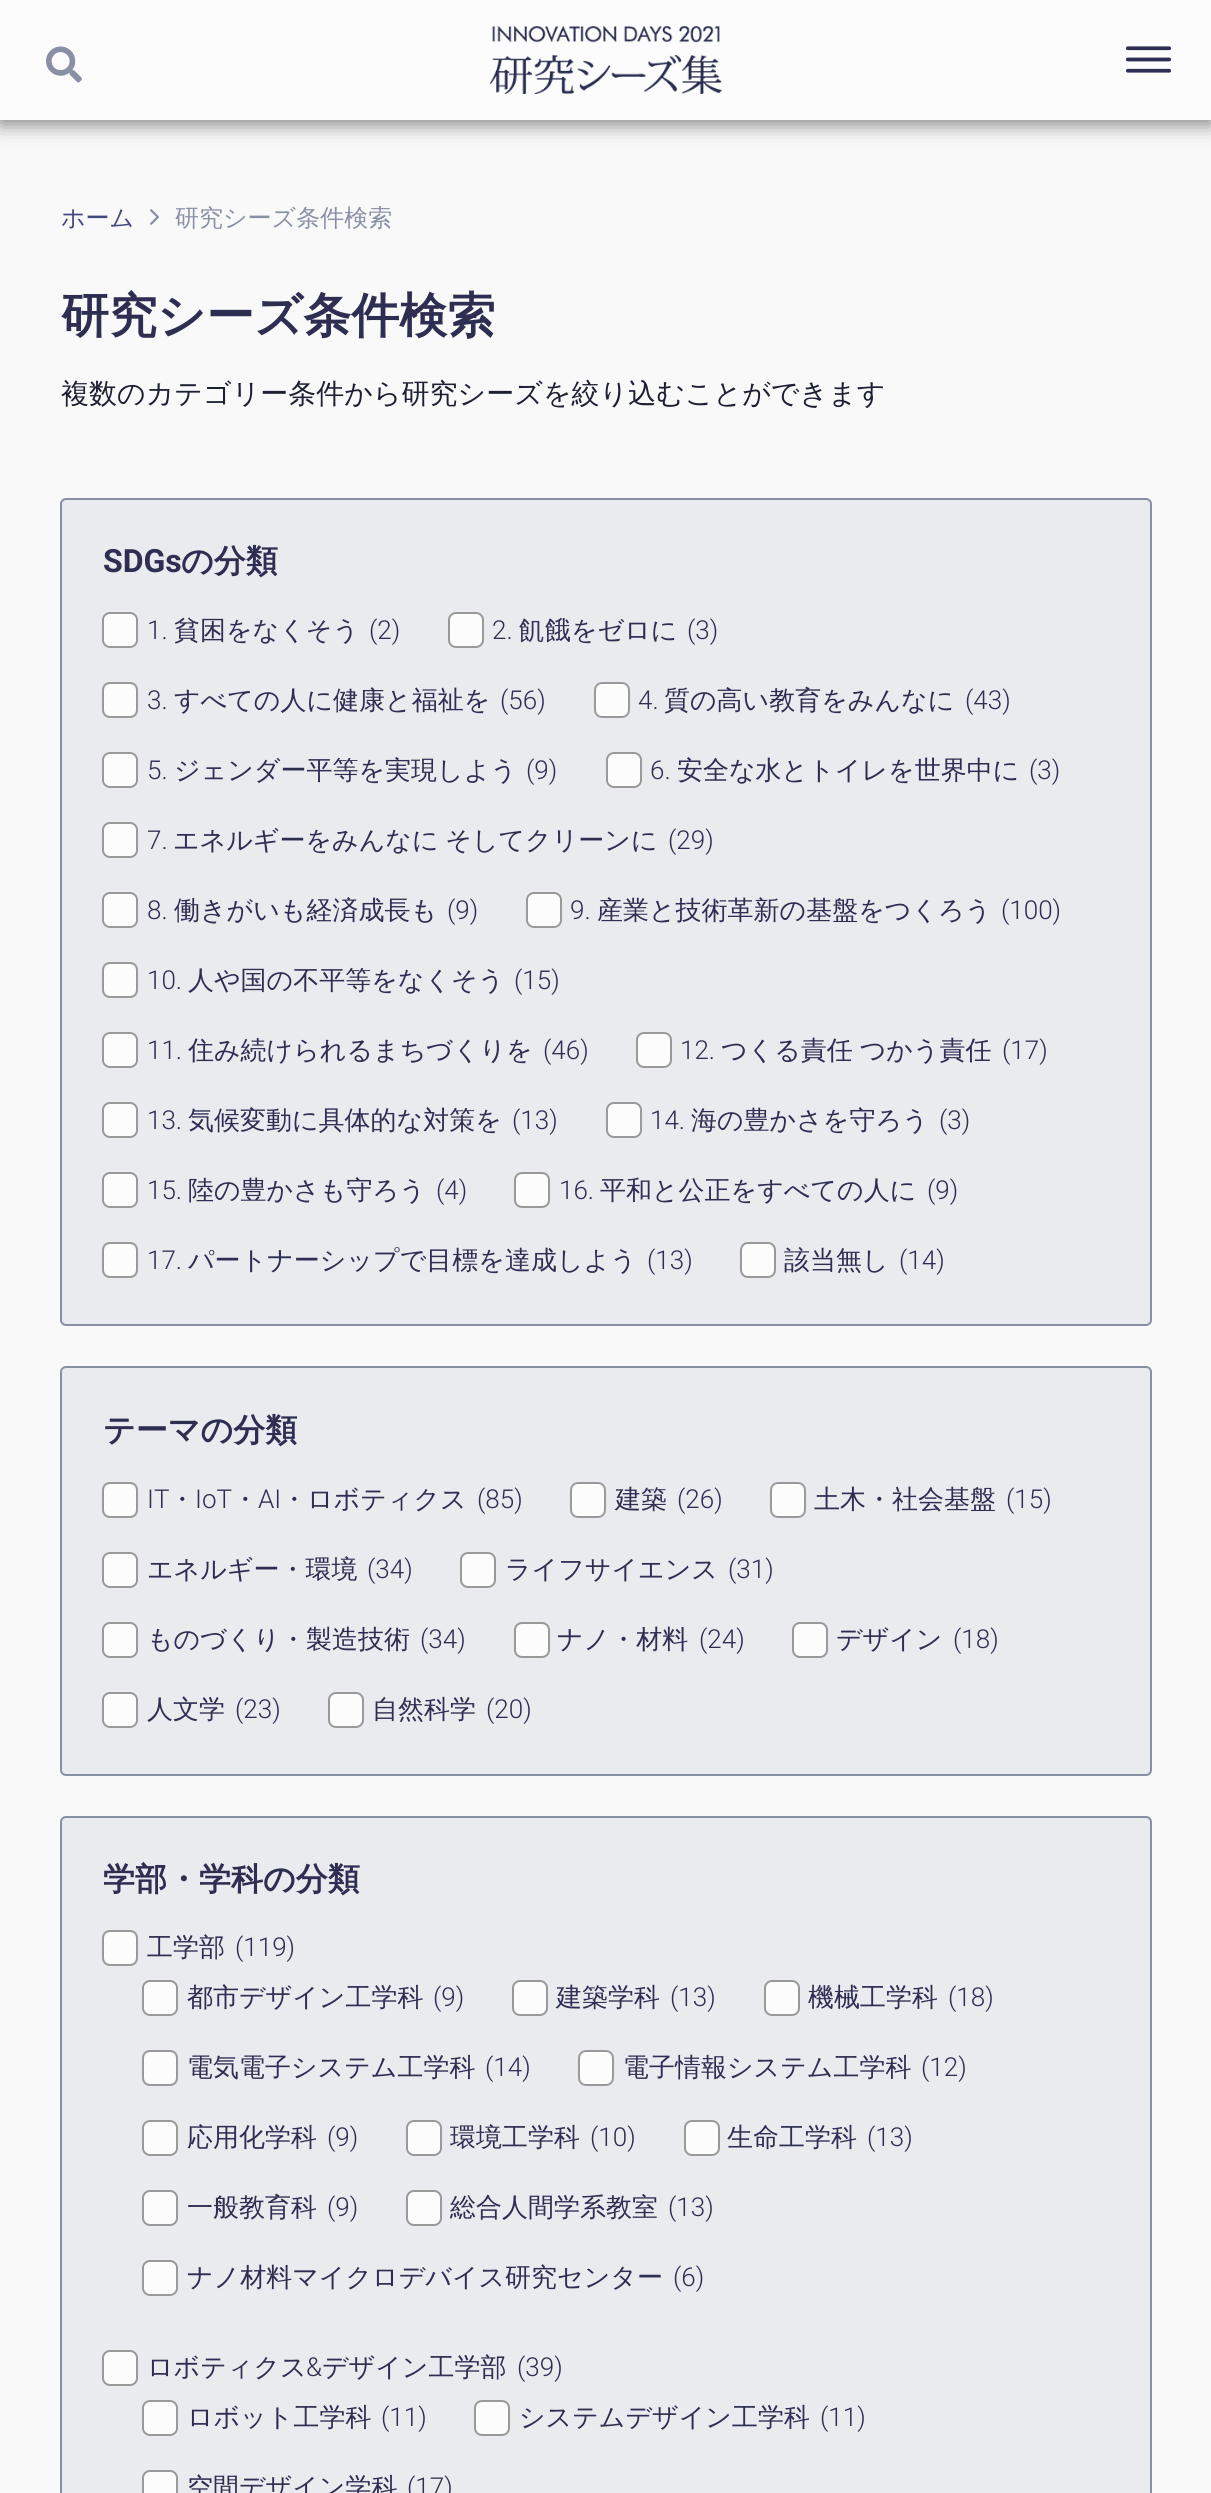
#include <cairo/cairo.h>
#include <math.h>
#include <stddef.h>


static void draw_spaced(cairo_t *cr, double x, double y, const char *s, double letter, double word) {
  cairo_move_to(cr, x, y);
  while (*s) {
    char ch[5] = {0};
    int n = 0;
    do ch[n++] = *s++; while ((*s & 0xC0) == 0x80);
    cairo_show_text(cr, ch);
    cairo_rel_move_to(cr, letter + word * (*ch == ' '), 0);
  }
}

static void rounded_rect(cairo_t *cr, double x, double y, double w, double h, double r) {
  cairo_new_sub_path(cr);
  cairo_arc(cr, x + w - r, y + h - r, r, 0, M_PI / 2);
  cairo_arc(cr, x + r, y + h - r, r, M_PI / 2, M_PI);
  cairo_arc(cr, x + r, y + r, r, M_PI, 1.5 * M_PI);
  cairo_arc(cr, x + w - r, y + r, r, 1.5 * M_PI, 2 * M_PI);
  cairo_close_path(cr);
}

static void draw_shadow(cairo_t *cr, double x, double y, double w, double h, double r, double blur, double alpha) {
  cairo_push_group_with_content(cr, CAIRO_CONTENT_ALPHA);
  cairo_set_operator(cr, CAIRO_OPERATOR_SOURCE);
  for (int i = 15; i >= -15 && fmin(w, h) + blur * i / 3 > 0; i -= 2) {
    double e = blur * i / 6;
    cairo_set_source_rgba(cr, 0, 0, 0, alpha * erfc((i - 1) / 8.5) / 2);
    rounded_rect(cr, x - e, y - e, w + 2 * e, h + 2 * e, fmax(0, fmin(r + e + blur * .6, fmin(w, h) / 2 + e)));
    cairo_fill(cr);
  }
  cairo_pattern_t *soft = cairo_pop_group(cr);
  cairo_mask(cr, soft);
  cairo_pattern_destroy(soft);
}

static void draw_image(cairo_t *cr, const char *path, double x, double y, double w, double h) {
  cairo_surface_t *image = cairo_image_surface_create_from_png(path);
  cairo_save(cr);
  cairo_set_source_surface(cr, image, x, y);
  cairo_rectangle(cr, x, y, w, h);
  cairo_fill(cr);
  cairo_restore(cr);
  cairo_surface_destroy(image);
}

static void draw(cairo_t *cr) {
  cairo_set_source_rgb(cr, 249 / 255.0, 249 / 255.0, 249 / 255.0);
  cairo_paint(cr);
  cairo_set_source_rgb(cr, 0, 0, 0);
  draw_shadow(cr, 0, 4, 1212, 120, 0, 10, 0.5);
  cairo_set_source_rgb(cr, 252 / 255.0, 252 / 255.0, 252 / 255.0);
  cairo_rectangle(cr, 0, 0, 1211, 120);
  cairo_fill(cr);
  draw_image(cr, "images/1.png", 46, 46, 36, 37);
  draw_image(cr, "images/2.png", 490, 26, 232, 68);
  draw_image(cr, "images/3.png", 1126, 46, 45, 27);
  draw_image(cr, "images/4.png", 150, 209, 9, 16);
  cairo_set_source_rgb(cr, 234 / 255.0, 235 / 255.0, 239 / 255.0);
  rounded_rect(cr, 61, 499, 1090, 826, 5);
  cairo_fill_preserve(cr);
  cairo_set_source_rgb(cr, 137 / 255.0, 144 / 255.0, 165 / 255.0);
  cairo_stroke(cr);
  cairo_set_source_rgb(cr, 252 / 255.0, 252 / 255.0, 252 / 255.0);
  rounded_rect(cr, 103, 613, 34, 34, 7);
  cairo_fill_preserve(cr);
  cairo_set_source_rgb(cr, 153 / 255.0, 153 / 255.0, 153 / 255.0);
  cairo_stroke(cr);
  cairo_set_source_rgb(cr, 252 / 255.0, 252 / 255.0, 252 / 255.0);
  rounded_rect(cr, 449, 613, 34, 34, 7);
  cairo_fill_preserve(cr);
  cairo_set_source_rgb(cr, 153 / 255.0, 153 / 255.0, 153 / 255.0);
  cairo_stroke(cr);
  cairo_set_source_rgb(cr, 252 / 255.0, 252 / 255.0, 252 / 255.0);
  rounded_rect(cr, 103, 683, 34, 34, 7);
  cairo_fill_preserve(cr);
  cairo_set_source_rgb(cr, 153 / 255.0, 153 / 255.0, 153 / 255.0);
  cairo_stroke(cr);
  cairo_set_source_rgb(cr, 252 / 255.0, 252 / 255.0, 252 / 255.0);
  rounded_rect(cr, 595, 683, 34, 34, 7);
  cairo_fill_preserve(cr);
  cairo_set_source_rgb(cr, 153 / 255.0, 153 / 255.0, 153 / 255.0);
  cairo_stroke(cr);
  cairo_set_source_rgb(cr, 252 / 255.0, 252 / 255.0, 252 / 255.0);
  rounded_rect(cr, 103, 753, 34, 34, 7);
  cairo_fill_preserve(cr);
  cairo_set_source_rgb(cr, 153 / 255.0, 153 / 255.0, 153 / 255.0);
  cairo_stroke(cr);
  cairo_set_source_rgb(cr, 252 / 255.0, 252 / 255.0, 252 / 255.0);
  rounded_rect(cr, 607, 753, 34, 34, 7);
  cairo_fill_preserve(cr);
  cairo_set_source_rgb(cr, 153 / 255.0, 153 / 255.0, 153 / 255.0);
  cairo_stroke(cr);
  cairo_set_source_rgb(cr, 252 / 255.0, 252 / 255.0, 252 / 255.0);
  rounded_rect(cr, 103, 823, 34, 34, 7);
  cairo_fill_preserve(cr);
  cairo_set_source_rgb(cr, 153 / 255.0, 153 / 255.0, 153 / 255.0);
  cairo_stroke(cr);
  cairo_set_source_rgb(cr, 252 / 255.0, 252 / 255.0, 252 / 255.0);
  rounded_rect(cr, 103, 893, 34, 34, 7);
  cairo_fill_preserve(cr);
  cairo_set_source_rgb(cr, 153 / 255.0, 153 / 255.0, 153 / 255.0);
  cairo_stroke(cr);
  cairo_set_source_rgb(cr, 252 / 255.0, 252 / 255.0, 252 / 255.0);
  rounded_rect(cr, 527, 893, 34, 34, 7);
  cairo_fill_preserve(cr);
  cairo_set_source_rgb(cr, 153 / 255.0, 153 / 255.0, 153 / 255.0);
  cairo_stroke(cr);
  cairo_set_source_rgb(cr, 252 / 255.0, 252 / 255.0, 252 / 255.0);
  rounded_rect(cr, 103, 963, 34, 34, 7);
  cairo_fill_preserve(cr);
  cairo_set_source_rgb(cr, 153 / 255.0, 153 / 255.0, 153 / 255.0);
  cairo_stroke(cr);
  cairo_set_source_rgb(cr, 252 / 255.0, 252 / 255.0, 252 / 255.0);
  rounded_rect(cr, 103, 1033, 34, 34, 7);
  cairo_fill_preserve(cr);
  cairo_set_source_rgb(cr, 153 / 255.0, 153 / 255.0, 153 / 255.0);
  cairo_stroke(cr);
  cairo_set_source_rgb(cr, 252 / 255.0, 252 / 255.0, 252 / 255.0);
  rounded_rect(cr, 637, 1033, 34, 34, 7);
  cairo_fill_preserve(cr);
  cairo_set_source_rgb(cr, 153 / 255.0, 153 / 255.0, 153 / 255.0);
  cairo_stroke(cr);
  cairo_set_source_rgb(cr, 252 / 255.0, 252 / 255.0, 252 / 255.0);
  rounded_rect(cr, 103, 1103, 34, 34, 7);
  cairo_fill_preserve(cr);
  cairo_set_source_rgb(cr, 153 / 255.0, 153 / 255.0, 153 / 255.0);
  cairo_stroke(cr);
  cairo_set_source_rgb(cr, 252 / 255.0, 252 / 255.0, 252 / 255.0);
  rounded_rect(cr, 607, 1103, 34, 34, 7);
  cairo_fill_preserve(cr);
  cairo_set_source_rgb(cr, 153 / 255.0, 153 / 255.0, 153 / 255.0);
  cairo_stroke(cr);
  cairo_set_source_rgb(cr, 252 / 255.0, 252 / 255.0, 252 / 255.0);
  rounded_rect(cr, 103, 1173, 34, 34, 7);
  cairo_fill_preserve(cr);
  cairo_set_source_rgb(cr, 153 / 255.0, 153 / 255.0, 153 / 255.0);
  cairo_stroke(cr);
  cairo_set_source_rgb(cr, 252 / 255.0, 252 / 255.0, 252 / 255.0);
  rounded_rect(cr, 515, 1173, 34, 34, 7);
  cairo_fill_preserve(cr);
  cairo_set_source_rgb(cr, 153 / 255.0, 153 / 255.0, 153 / 255.0);
  cairo_stroke(cr);
  cairo_set_source_rgb(cr, 252 / 255.0, 252 / 255.0, 252 / 255.0);
  rounded_rect(cr, 103, 1243, 34, 34, 7);
  cairo_fill_preserve(cr);
  cairo_set_source_rgb(cr, 153 / 255.0, 153 / 255.0, 153 / 255.0);
  cairo_stroke(cr);
  cairo_set_source_rgb(cr, 252 / 255.0, 252 / 255.0, 252 / 255.0);
  rounded_rect(cr, 741, 1243, 34, 34, 7);
  cairo_fill_preserve(cr);
  cairo_set_source_rgb(cr, 153 / 255.0, 153 / 255.0, 153 / 255.0);
  cairo_stroke(cr);
  cairo_set_source_rgb(cr, 234 / 255.0, 235 / 255.0, 239 / 255.0);
  rounded_rect(cr, 61, 1367, 1090, 408, 5);
  cairo_fill_preserve(cr);
  cairo_set_source_rgb(cr, 137 / 255.0, 144 / 255.0, 165 / 255.0);
  cairo_stroke(cr);
  cairo_set_source_rgb(cr, 252 / 255.0, 252 / 255.0, 252 / 255.0);
  rounded_rect(cr, 103, 1483, 34, 34, 7);
  cairo_fill_preserve(cr);
  cairo_set_source_rgb(cr, 153 / 255.0, 153 / 255.0, 153 / 255.0);
  cairo_stroke(cr);
  cairo_set_source_rgb(cr, 252 / 255.0, 252 / 255.0, 252 / 255.0);
  rounded_rect(cr, 571, 1483, 34, 34, 7);
  cairo_fill_preserve(cr);
  cairo_set_source_rgb(cr, 153 / 255.0, 153 / 255.0, 153 / 255.0);
  cairo_stroke(cr);
  cairo_set_source_rgb(cr, 252 / 255.0, 252 / 255.0, 252 / 255.0);
  rounded_rect(cr, 771, 1483, 34, 34, 7);
  cairo_fill_preserve(cr);
  cairo_set_source_rgb(cr, 153 / 255.0, 153 / 255.0, 153 / 255.0);
  cairo_stroke(cr);
  cairo_set_source_rgb(cr, 252 / 255.0, 252 / 255.0, 252 / 255.0);
  rounded_rect(cr, 103, 1553, 34, 34, 7);
  cairo_fill_preserve(cr);
  cairo_set_source_rgb(cr, 153 / 255.0, 153 / 255.0, 153 / 255.0);
  cairo_stroke(cr);
  cairo_set_source_rgb(cr, 252 / 255.0, 252 / 255.0, 252 / 255.0);
  rounded_rect(cr, 461, 1553, 34, 34, 7);
  cairo_fill_preserve(cr);
  cairo_set_source_rgb(cr, 153 / 255.0, 153 / 255.0, 153 / 255.0);
  cairo_stroke(cr);
  cairo_set_source_rgb(cr, 252 / 255.0, 252 / 255.0, 252 / 255.0);
  rounded_rect(cr, 103, 1623, 34, 34, 7);
  cairo_fill_preserve(cr);
  cairo_set_source_rgb(cr, 153 / 255.0, 153 / 255.0, 153 / 255.0);
  cairo_stroke(cr);
  cairo_set_source_rgb(cr, 252 / 255.0, 252 / 255.0, 252 / 255.0);
  rounded_rect(cr, 515, 1623, 34, 34, 7);
  cairo_fill_preserve(cr);
  cairo_set_source_rgb(cr, 153 / 255.0, 153 / 255.0, 153 / 255.0);
  cairo_stroke(cr);
  cairo_set_source_rgb(cr, 252 / 255.0, 252 / 255.0, 252 / 255.0);
  rounded_rect(cr, 793, 1623, 34, 34, 7);
  cairo_fill_preserve(cr);
  cairo_set_source_rgb(cr, 153 / 255.0, 153 / 255.0, 153 / 255.0);
  cairo_stroke(cr);
  cairo_set_source_rgb(cr, 252 / 255.0, 252 / 255.0, 252 / 255.0);
  rounded_rect(cr, 103, 1693, 34, 34, 7);
  cairo_fill_preserve(cr);
  cairo_set_source_rgb(cr, 153 / 255.0, 153 / 255.0, 153 / 255.0);
  cairo_stroke(cr);
  cairo_set_source_rgb(cr, 252 / 255.0, 252 / 255.0, 252 / 255.0);
  rounded_rect(cr, 329, 1693, 34, 34, 7);
  cairo_fill_preserve(cr);
  cairo_set_source_rgb(cr, 153 / 255.0, 153 / 255.0, 153 / 255.0);
  cairo_stroke(cr);
  cairo_set_source_rgb(cr, 234 / 255.0, 235 / 255.0, 239 / 255.0);
  rounded_rect(cr, 61, 1817, 1090, 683, 5);
  cairo_fill_preserve(cr);
  cairo_set_source_rgb(cr, 137 / 255.0, 144 / 255.0, 165 / 255.0);
  cairo_stroke(cr);
  cairo_set_source_rgb(cr, 252 / 255.0, 252 / 255.0, 252 / 255.0);
  rounded_rect(cr, 103, 1931, 34, 34, 7);
  cairo_fill_preserve(cr);
  cairo_set_source_rgb(cr, 153 / 255.0, 153 / 255.0, 153 / 255.0);
  cairo_stroke(cr);
  cairo_set_source_rgb(cr, 252 / 255.0, 252 / 255.0, 252 / 255.0);
  rounded_rect(cr, 143, 1981, 34, 34, 7);
  cairo_fill_preserve(cr);
  cairo_set_source_rgb(cr, 153 / 255.0, 153 / 255.0, 153 / 255.0);
  cairo_stroke(cr);
  cairo_set_source_rgb(cr, 252 / 255.0, 252 / 255.0, 252 / 255.0);
  rounded_rect(cr, 513, 1981, 34, 34, 7);
  cairo_fill_preserve(cr);
  cairo_set_source_rgb(cr, 153 / 255.0, 153 / 255.0, 153 / 255.0);
  cairo_stroke(cr);
  cairo_set_source_rgb(cr, 252 / 255.0, 252 / 255.0, 252 / 255.0);
  rounded_rect(cr, 765, 1981, 34, 34, 7);
  cairo_fill_preserve(cr);
  cairo_set_source_rgb(cr, 153 / 255.0, 153 / 255.0, 153 / 255.0);
  cairo_stroke(cr);
  cairo_set_source_rgb(cr, 252 / 255.0, 252 / 255.0, 252 / 255.0);
  rounded_rect(cr, 143, 2051, 34, 34, 7);
  cairo_fill_preserve(cr);
  cairo_set_source_rgb(cr, 153 / 255.0, 153 / 255.0, 153 / 255.0);
  cairo_stroke(cr);
  cairo_set_source_rgb(cr, 252 / 255.0, 252 / 255.0, 252 / 255.0);
  rounded_rect(cr, 579, 2051, 34, 34, 7);
  cairo_fill_preserve(cr);
  cairo_set_source_rgb(cr, 153 / 255.0, 153 / 255.0, 153 / 255.0);
  cairo_stroke(cr);
  cairo_set_source_rgb(cr, 252 / 255.0, 252 / 255.0, 252 / 255.0);
  rounded_rect(cr, 143, 2121, 34, 34, 7);
  cairo_fill_preserve(cr);
  cairo_set_source_rgb(cr, 153 / 255.0, 153 / 255.0, 153 / 255.0);
  cairo_stroke(cr);
  cairo_set_source_rgb(cr, 252 / 255.0, 252 / 255.0, 252 / 255.0);
  rounded_rect(cr, 407, 2121, 34, 34, 7);
  cairo_fill_preserve(cr);
  cairo_set_source_rgb(cr, 153 / 255.0, 153 / 255.0, 153 / 255.0);
  cairo_stroke(cr);
  cairo_set_source_rgb(cr, 252 / 255.0, 252 / 255.0, 252 / 255.0);
  rounded_rect(cr, 685, 2121, 34, 34, 7);
  cairo_fill_preserve(cr);
  cairo_set_source_rgb(cr, 153 / 255.0, 153 / 255.0, 153 / 255.0);
  cairo_stroke(cr);
  cairo_set_source_rgb(cr, 252 / 255.0, 252 / 255.0, 252 / 255.0);
  rounded_rect(cr, 143, 2191, 34, 34, 7);
  cairo_fill_preserve(cr);
  cairo_set_source_rgb(cr, 153 / 255.0, 153 / 255.0, 153 / 255.0);
  cairo_stroke(cr);
  cairo_set_source_rgb(cr, 252 / 255.0, 252 / 255.0, 252 / 255.0);
  rounded_rect(cr, 407, 2191, 34, 34, 7);
  cairo_fill_preserve(cr);
  cairo_set_source_rgb(cr, 153 / 255.0, 153 / 255.0, 153 / 255.0);
  cairo_stroke(cr);
  cairo_set_source_rgb(cr, 252 / 255.0, 252 / 255.0, 252 / 255.0);
  rounded_rect(cr, 143, 2261, 34, 34, 7);
  cairo_fill_preserve(cr);
  cairo_set_source_rgb(cr, 153 / 255.0, 153 / 255.0, 153 / 255.0);
  cairo_stroke(cr);
  cairo_set_source_rgb(cr, 252 / 255.0, 252 / 255.0, 252 / 255.0);
  rounded_rect(cr, 103, 2351, 34, 34, 7);
  cairo_fill_preserve(cr);
  cairo_set_source_rgb(cr, 153 / 255.0, 153 / 255.0, 153 / 255.0);
  cairo_stroke(cr);
  cairo_set_source_rgb(cr, 252 / 255.0, 252 / 255.0, 252 / 255.0);
  rounded_rect(cr, 143, 2401, 34, 34, 7);
  cairo_fill_preserve(cr);
  cairo_set_source_rgb(cr, 153 / 255.0, 153 / 255.0, 153 / 255.0);
  cairo_stroke(cr);
  cairo_set_source_rgb(cr, 252 / 255.0, 252 / 255.0, 252 / 255.0);
  rounded_rect(cr, 475, 2401, 34, 34, 7);
  cairo_fill_preserve(cr);
  cairo_set_source_rgb(cr, 153 / 255.0, 153 / 255.0, 153 / 255.0);
  cairo_stroke(cr);
  cairo_set_source_rgb(cr, 252 / 255.0, 252 / 255.0, 252 / 255.0);
  rounded_rect(cr, 143, 2471, 34, 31, 7);
  cairo_fill_preserve(cr);
  cairo_set_source_rgb(cr, 153 / 255.0, 153 / 255.0, 153 / 255.0);
  cairo_stroke(cr);
  cairo_select_font_face(cr, "WenQuanYi Zen Hei Medium", CAIRO_FONT_SLANT_NORMAL, CAIRO_FONT_WEIGHT_NORMAL);
  cairo_set_font_size(cr, 24);
  cairo_set_source_rgb(cr, 69 / 255.0, 72 / 255.0, 124 / 255.0);
  cairo_move_to(cr, 61, 226);
  cairo_show_text(cr, "ホーム");
  cairo_set_source_rgb(cr, 137 / 255.0, 144 / 255.0, 165 / 255.0);
  cairo_move_to(cr, 175, 226);
  cairo_show_text(cr, "研究シーズ条件検索");
  cairo_select_font_face(cr, "WenQuanYi Zen Hei", CAIRO_FONT_SLANT_NORMAL, CAIRO_FONT_WEIGHT_BOLD);
  cairo_set_font_size(cr, 48);
  cairo_set_source_rgb(cr, 45 / 255.0, 46 / 255.0, 82 / 255.0);
  cairo_move_to(cr, 61, 332);
  cairo_show_text(cr, "研究シーズ条件検索");
  cairo_select_font_face(cr, "WenQuanYi Zen Hei Medium", CAIRO_FONT_SLANT_NORMAL, CAIRO_FONT_WEIGHT_NORMAL);
  cairo_set_font_size(cr, 28);
  cairo_set_source_rgb(cr, 29 / 255.0, 31 / 255.0, 51 / 255.0);
  cairo_move_to(cr, 61, 403);
  cairo_show_text(cr, "複数のカテゴリー条件から研究シーズを絞り込むことができます");
  cairo_select_font_face(cr, "Roboto", CAIRO_FONT_SLANT_NORMAL, CAIRO_FONT_WEIGHT_BOLD);
  cairo_set_font_size(cr, 32);
  cairo_set_source_rgb(cr, 45 / 255.0, 46 / 255.0, 82 / 255.0);
  cairo_move_to(cr, 103, 572);
  cairo_show_text(cr, "SDGs");
  cairo_select_font_face(cr, "WenQuanYi Zen Hei", CAIRO_FONT_SLANT_NORMAL, CAIRO_FONT_WEIGHT_BOLD);
  cairo_move_to(cr, 181, 572);
  cairo_show_text(cr, "の分類");
  cairo_select_font_face(cr, "Roboto Light", CAIRO_FONT_SLANT_NORMAL, CAIRO_FONT_WEIGHT_NORMAL);
  cairo_set_font_size(cr, 26);
  cairo_move_to(cr, 147, 639);
  cairo_show_text(cr, "1.");
  cairo_select_font_face(cr, "WenQuanYi Zen Hei Medium", CAIRO_FONT_SLANT_NORMAL, CAIRO_FONT_WEIGHT_NORMAL);
  cairo_move_to(cr, 174, 639);
  cairo_show_text(cr, "貧困をなくそう");
  cairo_select_font_face(cr, "Roboto Light", CAIRO_FONT_SLANT_NORMAL, CAIRO_FONT_WEIGHT_NORMAL);
  cairo_move_to(cr, 369, 639);
  cairo_show_text(cr, "(2)");
  cairo_move_to(cr, 492, 639);
  cairo_show_text(cr, "2.");
  cairo_select_font_face(cr, "WenQuanYi Zen Hei Medium", CAIRO_FONT_SLANT_NORMAL, CAIRO_FONT_WEIGHT_NORMAL);
  cairo_move_to(cr, 519, 639);
  cairo_show_text(cr, "飢餓をゼロに");
  cairo_select_font_face(cr, "Roboto Light", CAIRO_FONT_SLANT_NORMAL, CAIRO_FONT_WEIGHT_NORMAL);
  cairo_move_to(cr, 687, 639);
  cairo_show_text(cr, "(3)");
  cairo_move_to(cr, 147, 709);
  cairo_show_text(cr, "3.");
  cairo_select_font_face(cr, "WenQuanYi Zen Hei Medium", CAIRO_FONT_SLANT_NORMAL, CAIRO_FONT_WEIGHT_NORMAL);
  cairo_move_to(cr, 174, 709);
  cairo_show_text(cr, "すべての人に健康と福祉を");
  cairo_select_font_face(cr, "Roboto Light", CAIRO_FONT_SLANT_NORMAL, CAIRO_FONT_WEIGHT_NORMAL);
  cairo_move_to(cr, 500, 709);
  cairo_show_text(cr, "(56)");
  cairo_move_to(cr, 638, 709);
  cairo_show_text(cr, "4.");
  cairo_select_font_face(cr, "WenQuanYi Zen Hei Medium", CAIRO_FONT_SLANT_NORMAL, CAIRO_FONT_WEIGHT_NORMAL);
  cairo_move_to(cr, 664, 709);
  cairo_show_text(cr, "質の高い教育をみんなに");
  cairo_select_font_face(cr, "Roboto Light", CAIRO_FONT_SLANT_NORMAL, CAIRO_FONT_WEIGHT_NORMAL);
  cairo_move_to(cr, 965, 709);
  cairo_show_text(cr, "(43)");
  cairo_move_to(cr, 147, 779);
  cairo_show_text(cr, "5.");
  cairo_select_font_face(cr, "WenQuanYi Zen Hei Medium", CAIRO_FONT_SLANT_NORMAL, CAIRO_FONT_WEIGHT_NORMAL);
  cairo_move_to(cr, 174, 779);
  cairo_show_text(cr, "ジェンダー平等を実現しよう");
  cairo_select_font_face(cr, "Roboto Light", CAIRO_FONT_SLANT_NORMAL, CAIRO_FONT_WEIGHT_NORMAL);
  cairo_move_to(cr, 526, 779);
  cairo_show_text(cr, "(9)");
  cairo_move_to(cr, 650, 779);
  cairo_show_text(cr, "6.");
  cairo_select_font_face(cr, "WenQuanYi Zen Hei Medium", CAIRO_FONT_SLANT_NORMAL, CAIRO_FONT_WEIGHT_NORMAL);
  cairo_move_to(cr, 677, 779);
  cairo_show_text(cr, "安全な水とトイレを世界中に");
  cairo_select_font_face(cr, "Roboto Light", CAIRO_FONT_SLANT_NORMAL, CAIRO_FONT_WEIGHT_NORMAL);
  cairo_move_to(cr, 1029, 779);
  cairo_show_text(cr, "(3)");
  cairo_move_to(cr, 147, 849);
  cairo_show_text(cr, "7.");
  cairo_select_font_face(cr, "WenQuanYi Zen Hei Medium", CAIRO_FONT_SLANT_NORMAL, CAIRO_FONT_WEIGHT_NORMAL);
  draw_spaced(cr, 173, 849, "エネルギーをみんなに そしてクリーンに", 0, -1);
  cairo_select_font_face(cr, "Roboto Light", CAIRO_FONT_SLANT_NORMAL, CAIRO_FONT_WEIGHT_NORMAL);
  cairo_move_to(cr, 668, 849);
  cairo_show_text(cr, "(29)");
  cairo_move_to(cr, 147, 919);
  cairo_show_text(cr, "8.");
  cairo_select_font_face(cr, "WenQuanYi Zen Hei Medium", CAIRO_FONT_SLANT_NORMAL, CAIRO_FONT_WEIGHT_NORMAL);
  cairo_move_to(cr, 174, 919);
  cairo_show_text(cr, "働きがいも経済成長も");
  cairo_select_font_face(cr, "Roboto Light", CAIRO_FONT_SLANT_NORMAL, CAIRO_FONT_WEIGHT_NORMAL);
  cairo_move_to(cr, 447, 919);
  cairo_show_text(cr, "(9)");
  cairo_move_to(cr, 570, 919);
  cairo_show_text(cr, "9.");
  cairo_select_font_face(cr, "WenQuanYi Zen Hei Medium", CAIRO_FONT_SLANT_NORMAL, CAIRO_FONT_WEIGHT_NORMAL);
  cairo_move_to(cr, 597, 919);
  cairo_show_text(cr, "産業と技術革新の基盤をつくろう");
  cairo_select_font_face(cr, "Roboto Light", CAIRO_FONT_SLANT_NORMAL, CAIRO_FONT_WEIGHT_NORMAL);
  cairo_move_to(cr, 1001, 919);
  cairo_show_text(cr, "(100)");
  cairo_move_to(cr, 147, 989);
  cairo_show_text(cr, "10.");
  cairo_select_font_face(cr, "WenQuanYi Zen Hei Medium", CAIRO_FONT_SLANT_NORMAL, CAIRO_FONT_WEIGHT_NORMAL);
  cairo_move_to(cr, 188, 989);
  cairo_show_text(cr, "人や国の不平等をなくそう");
  cairo_select_font_face(cr, "Roboto Light", CAIRO_FONT_SLANT_NORMAL, CAIRO_FONT_WEIGHT_NORMAL);
  cairo_move_to(cr, 514, 989);
  cairo_show_text(cr, "(15)");
  cairo_move_to(cr, 147, 1059);
  cairo_show_text(cr, "11.");
  cairo_select_font_face(cr, "WenQuanYi Zen Hei Medium", CAIRO_FONT_SLANT_NORMAL, CAIRO_FONT_WEIGHT_NORMAL);
  cairo_move_to(cr, 188, 1059);
  cairo_show_text(cr, "住み続けられるまちづくりを");
  cairo_select_font_face(cr, "Roboto Light", CAIRO_FONT_SLANT_NORMAL, CAIRO_FONT_WEIGHT_NORMAL);
  cairo_move_to(cr, 543, 1059);
  cairo_show_text(cr, "(46)");
  cairo_move_to(cr, 680, 1059);
  cairo_show_text(cr, "12.");
  cairo_select_font_face(cr, "WenQuanYi Zen Hei Medium", CAIRO_FONT_SLANT_NORMAL, CAIRO_FONT_WEIGHT_NORMAL);
  draw_spaced(cr, 721, 1059, "つくる責任 つかう責任", 0, -1);
  cairo_select_font_face(cr, "Roboto Light", CAIRO_FONT_SLANT_NORMAL, CAIRO_FONT_WEIGHT_NORMAL);
  cairo_move_to(cr, 1002, 1059);
  cairo_show_text(cr, "(17)");
  cairo_move_to(cr, 147, 1129);
  cairo_show_text(cr, "13.");
  cairo_select_font_face(cr, "WenQuanYi Zen Hei Medium", CAIRO_FONT_SLANT_NORMAL, CAIRO_FONT_WEIGHT_NORMAL);
  cairo_move_to(cr, 188, 1129);
  cairo_show_text(cr, "気候変動に具体的な対策を");
  cairo_select_font_face(cr, "Roboto Light", CAIRO_FONT_SLANT_NORMAL, CAIRO_FONT_WEIGHT_NORMAL);
  cairo_move_to(cr, 512, 1129);
  cairo_show_text(cr, "(13)");
  cairo_move_to(cr, 650, 1129);
  cairo_show_text(cr, "14.");
  cairo_select_font_face(cr, "WenQuanYi Zen Hei Medium", CAIRO_FONT_SLANT_NORMAL, CAIRO_FONT_WEIGHT_NORMAL);
  cairo_move_to(cr, 691, 1129);
  cairo_show_text(cr, "海の豊かさを守ろう");
  cairo_select_font_face(cr, "Roboto Light", CAIRO_FONT_SLANT_NORMAL, CAIRO_FONT_WEIGHT_NORMAL);
  cairo_move_to(cr, 939, 1129);
  cairo_show_text(cr, "(3)");
  cairo_move_to(cr, 147, 1199);
  cairo_show_text(cr, "15.");
  cairo_select_font_face(cr, "WenQuanYi Zen Hei Medium", CAIRO_FONT_SLANT_NORMAL, CAIRO_FONT_WEIGHT_NORMAL);
  cairo_move_to(cr, 188, 1199);
  cairo_show_text(cr, "陸の豊かさも守ろう");
  cairo_select_font_face(cr, "Roboto Light", CAIRO_FONT_SLANT_NORMAL, CAIRO_FONT_WEIGHT_NORMAL);
  cairo_move_to(cr, 436, 1199);
  cairo_show_text(cr, "(4)");
  cairo_move_to(cr, 559, 1199);
  cairo_show_text(cr, "16.");
  cairo_select_font_face(cr, "WenQuanYi Zen Hei Medium", CAIRO_FONT_SLANT_NORMAL, CAIRO_FONT_WEIGHT_NORMAL);
  cairo_move_to(cr, 600, 1199);
  cairo_show_text(cr, "平和と公正をすべての人に");
  cairo_select_font_face(cr, "Roboto Light", CAIRO_FONT_SLANT_NORMAL, CAIRO_FONT_WEIGHT_NORMAL);
  cairo_move_to(cr, 927, 1199);
  cairo_show_text(cr, "(9)");
  cairo_move_to(cr, 147, 1269);
  cairo_show_text(cr, "17.");
  cairo_select_font_face(cr, "WenQuanYi Zen Hei Medium", CAIRO_FONT_SLANT_NORMAL, CAIRO_FONT_WEIGHT_NORMAL);
  cairo_move_to(cr, 188, 1269);
  cairo_show_text(cr, "パートナーシップで目標を達成しよう");
  cairo_select_font_face(cr, "Roboto Light", CAIRO_FONT_SLANT_NORMAL, CAIRO_FONT_WEIGHT_NORMAL);
  cairo_move_to(cr, 647, 1269);
  cairo_show_text(cr, "(13)");
  cairo_select_font_face(cr, "WenQuanYi Zen Hei Medium", CAIRO_FONT_SLANT_NORMAL, CAIRO_FONT_WEIGHT_NORMAL);
  cairo_move_to(cr, 784, 1269);
  cairo_show_text(cr, "該当無し");
  cairo_select_font_face(cr, "Roboto Light", CAIRO_FONT_SLANT_NORMAL, CAIRO_FONT_WEIGHT_NORMAL);
  cairo_move_to(cr, 899, 1269);
  cairo_show_text(cr, "(14)");
  cairo_select_font_face(cr, "WenQuanYi Zen Hei", CAIRO_FONT_SLANT_NORMAL, CAIRO_FONT_WEIGHT_BOLD);
  cairo_set_font_size(cr, 32);
  cairo_move_to(cr, 103, 1441);
  cairo_show_text(cr, "テーマの分類");
  cairo_select_font_face(cr, "Roboto Light", CAIRO_FONT_SLANT_NORMAL, CAIRO_FONT_WEIGHT_NORMAL);
  cairo_set_font_size(cr, 26);
  cairo_move_to(cr, 147, 1508);
  cairo_show_text(cr, "IT");
  cairo_select_font_face(cr, "WenQuanYi Zen Hei Medium", CAIRO_FONT_SLANT_NORMAL, CAIRO_FONT_WEIGHT_NORMAL);
  cairo_move_to(cr, 169, 1508);
  cairo_show_text(cr, "・");
  cairo_select_font_face(cr, "Roboto Light", CAIRO_FONT_SLANT_NORMAL, CAIRO_FONT_WEIGHT_NORMAL);
  cairo_move_to(cr, 195, 1508);
  cairo_show_text(cr, "IoT");
  cairo_select_font_face(cr, "WenQuanYi Zen Hei Medium", CAIRO_FONT_SLANT_NORMAL, CAIRO_FONT_WEIGHT_NORMAL);
  cairo_move_to(cr, 232, 1508);
  cairo_show_text(cr, "・");
  cairo_select_font_face(cr, "Roboto Light", CAIRO_FONT_SLANT_NORMAL, CAIRO_FONT_WEIGHT_NORMAL);
  cairo_move_to(cr, 258, 1508);
  cairo_show_text(cr, "AI");
  cairo_select_font_face(cr, "WenQuanYi Zen Hei Medium", CAIRO_FONT_SLANT_NORMAL, CAIRO_FONT_WEIGHT_NORMAL);
  cairo_move_to(cr, 281, 1508);
  cairo_show_text(cr, "・ロボティクス");
  cairo_select_font_face(cr, "Roboto Light", CAIRO_FONT_SLANT_NORMAL, CAIRO_FONT_WEIGHT_NORMAL);
  cairo_move_to(cr, 477, 1508);
  cairo_show_text(cr, "(85)");
  cairo_select_font_face(cr, "WenQuanYi Zen Hei Medium", CAIRO_FONT_SLANT_NORMAL, CAIRO_FONT_WEIGHT_NORMAL);
  cairo_move_to(cr, 615, 1508);
  cairo_show_text(cr, "建築");
  cairo_select_font_face(cr, "Roboto Light", CAIRO_FONT_SLANT_NORMAL, CAIRO_FONT_WEIGHT_NORMAL);
  cairo_move_to(cr, 677, 1508);
  cairo_show_text(cr, "(26)");
  cairo_select_font_face(cr, "WenQuanYi Zen Hei Medium", CAIRO_FONT_SLANT_NORMAL, CAIRO_FONT_WEIGHT_NORMAL);
  cairo_move_to(cr, 814, 1508);
  cairo_show_text(cr, "土木・社会基盤");
  cairo_select_font_face(cr, "Roboto Light", CAIRO_FONT_SLANT_NORMAL, CAIRO_FONT_WEIGHT_NORMAL);
  cairo_move_to(cr, 1006, 1508);
  cairo_show_text(cr, "(15)");
  cairo_select_font_face(cr, "WenQuanYi Zen Hei Medium", CAIRO_FONT_SLANT_NORMAL, CAIRO_FONT_WEIGHT_NORMAL);
  cairo_move_to(cr, 147, 1578);
  cairo_show_text(cr, "エネルギー・環境");
  cairo_select_font_face(cr, "Roboto Light", CAIRO_FONT_SLANT_NORMAL, CAIRO_FONT_WEIGHT_NORMAL);
  cairo_move_to(cr, 367, 1578);
  cairo_show_text(cr, "(34)");
  cairo_select_font_face(cr, "WenQuanYi Zen Hei Medium", CAIRO_FONT_SLANT_NORMAL, CAIRO_FONT_WEIGHT_NORMAL);
  cairo_move_to(cr, 505, 1578);
  cairo_show_text(cr, "ライフサイエンス");
  cairo_select_font_face(cr, "Roboto Light", CAIRO_FONT_SLANT_NORMAL, CAIRO_FONT_WEIGHT_NORMAL);
  cairo_move_to(cr, 728, 1578);
  cairo_show_text(cr, "(31)");
  cairo_select_font_face(cr, "WenQuanYi Zen Hei Medium", CAIRO_FONT_SLANT_NORMAL, CAIRO_FONT_WEIGHT_NORMAL);
  cairo_move_to(cr, 147, 1648);
  cairo_show_text(cr, "ものづくり・製造技術");
  cairo_select_font_face(cr, "Roboto Light", CAIRO_FONT_SLANT_NORMAL, CAIRO_FONT_WEIGHT_NORMAL);
  cairo_move_to(cr, 420, 1648);
  cairo_show_text(cr, "(34)");
  cairo_select_font_face(cr, "WenQuanYi Zen Hei Medium", CAIRO_FONT_SLANT_NORMAL, CAIRO_FONT_WEIGHT_NORMAL);
  cairo_move_to(cr, 557, 1648);
  cairo_show_text(cr, "ナノ・材料");
  cairo_select_font_face(cr, "Roboto Light", CAIRO_FONT_SLANT_NORMAL, CAIRO_FONT_WEIGHT_NORMAL);
  cairo_move_to(cr, 699, 1648);
  cairo_show_text(cr, "(24)");
  cairo_select_font_face(cr, "WenQuanYi Zen Hei Medium", CAIRO_FONT_SLANT_NORMAL, CAIRO_FONT_WEIGHT_NORMAL);
  cairo_move_to(cr, 836, 1648);
  cairo_show_text(cr, "デザイン");
  cairo_select_font_face(cr, "Roboto Light", CAIRO_FONT_SLANT_NORMAL, CAIRO_FONT_WEIGHT_NORMAL);
  cairo_move_to(cr, 953, 1648);
  cairo_show_text(cr, "(18)");
  cairo_select_font_face(cr, "WenQuanYi Zen Hei Medium", CAIRO_FONT_SLANT_NORMAL, CAIRO_FONT_WEIGHT_NORMAL);
  cairo_move_to(cr, 147, 1718);
  cairo_show_text(cr, "人文学");
  cairo_select_font_face(cr, "Roboto Light", CAIRO_FONT_SLANT_NORMAL, CAIRO_FONT_WEIGHT_NORMAL);
  cairo_move_to(cr, 235, 1718);
  cairo_show_text(cr, "(23)");
  cairo_select_font_face(cr, "WenQuanYi Zen Hei Medium", CAIRO_FONT_SLANT_NORMAL, CAIRO_FONT_WEIGHT_NORMAL);
  cairo_move_to(cr, 372, 1718);
  cairo_show_text(cr, "自然科学");
  cairo_select_font_face(cr, "Roboto Light", CAIRO_FONT_SLANT_NORMAL, CAIRO_FONT_WEIGHT_NORMAL);
  cairo_move_to(cr, 486, 1718);
  cairo_show_text(cr, "(20)");
  cairo_select_font_face(cr, "WenQuanYi Zen Hei", CAIRO_FONT_SLANT_NORMAL, CAIRO_FONT_WEIGHT_BOLD);
  cairo_set_font_size(cr, 32);
  cairo_move_to(cr, 103, 1890);
  cairo_show_text(cr, "学部・学科の分類");
  cairo_select_font_face(cr, "WenQuanYi Zen Hei Medium", CAIRO_FONT_SLANT_NORMAL, CAIRO_FONT_WEIGHT_NORMAL);
  cairo_set_font_size(cr, 26);
  cairo_move_to(cr, 147, 1956);
  cairo_show_text(cr, "工学部");
  cairo_select_font_face(cr, "Roboto Light", CAIRO_FONT_SLANT_NORMAL, CAIRO_FONT_WEIGHT_NORMAL);
  cairo_move_to(cr, 235, 1956);
  cairo_show_text(cr, "(119)");
  cairo_select_font_face(cr, "WenQuanYi Zen Hei Medium", CAIRO_FONT_SLANT_NORMAL, CAIRO_FONT_WEIGHT_NORMAL);
  cairo_move_to(cr, 187, 2006);
  cairo_show_text(cr, "都市デザイン工学科");
  cairo_select_font_face(cr, "Roboto Light", CAIRO_FONT_SLANT_NORMAL, CAIRO_FONT_WEIGHT_NORMAL);
  cairo_move_to(cr, 433, 2006);
  cairo_show_text(cr, "(9)");
  cairo_select_font_face(cr, "WenQuanYi Zen Hei Medium", CAIRO_FONT_SLANT_NORMAL, CAIRO_FONT_WEIGHT_NORMAL);
  cairo_move_to(cr, 556, 2006);
  cairo_show_text(cr, "建築学科");
  cairo_select_font_face(cr, "Roboto Light", CAIRO_FONT_SLANT_NORMAL, CAIRO_FONT_WEIGHT_NORMAL);
  cairo_move_to(cr, 670, 2006);
  cairo_show_text(cr, "(13)");
  cairo_select_font_face(cr, "WenQuanYi Zen Hei Medium", CAIRO_FONT_SLANT_NORMAL, CAIRO_FONT_WEIGHT_NORMAL);
  cairo_move_to(cr, 808, 2006);
  cairo_show_text(cr, "機械工学科");
  cairo_select_font_face(cr, "Roboto Light", CAIRO_FONT_SLANT_NORMAL, CAIRO_FONT_WEIGHT_NORMAL);
  cairo_move_to(cr, 948, 2006);
  cairo_show_text(cr, "(18)");
  cairo_select_font_face(cr, "WenQuanYi Zen Hei Medium", CAIRO_FONT_SLANT_NORMAL, CAIRO_FONT_WEIGHT_NORMAL);
  cairo_move_to(cr, 187, 2076);
  cairo_show_text(cr, "電気電子システム工学科");
  cairo_select_font_face(cr, "Roboto Light", CAIRO_FONT_SLANT_NORMAL, CAIRO_FONT_WEIGHT_NORMAL);
  cairo_move_to(cr, 485, 2076);
  cairo_show_text(cr, "(14)");
  cairo_select_font_face(cr, "WenQuanYi Zen Hei Medium", CAIRO_FONT_SLANT_NORMAL, CAIRO_FONT_WEIGHT_NORMAL);
  cairo_move_to(cr, 623, 2076);
  cairo_show_text(cr, "電子情報システム工学科");
  cairo_select_font_face(cr, "Roboto Light", CAIRO_FONT_SLANT_NORMAL, CAIRO_FONT_WEIGHT_NORMAL);
  cairo_move_to(cr, 921, 2076);
  cairo_show_text(cr, "(12)");
  cairo_select_font_face(cr, "WenQuanYi Zen Hei Medium", CAIRO_FONT_SLANT_NORMAL, CAIRO_FONT_WEIGHT_NORMAL);
  cairo_move_to(cr, 187, 2146);
  cairo_show_text(cr, "応用化学科");
  cairo_select_font_face(cr, "Roboto Light", CAIRO_FONT_SLANT_NORMAL, CAIRO_FONT_WEIGHT_NORMAL);
  cairo_move_to(cr, 327, 2146);
  cairo_show_text(cr, "(9)");
  cairo_select_font_face(cr, "WenQuanYi Zen Hei Medium", CAIRO_FONT_SLANT_NORMAL, CAIRO_FONT_WEIGHT_NORMAL);
  cairo_move_to(cr, 450, 2146);
  cairo_show_text(cr, "環境工学科");
  cairo_select_font_face(cr, "Roboto Light", CAIRO_FONT_SLANT_NORMAL, CAIRO_FONT_WEIGHT_NORMAL);
  cairo_move_to(cr, 590, 2146);
  cairo_show_text(cr, "(10)");
  cairo_select_font_face(cr, "WenQuanYi Zen Hei Medium", CAIRO_FONT_SLANT_NORMAL, CAIRO_FONT_WEIGHT_NORMAL);
  cairo_move_to(cr, 727, 2146);
  cairo_show_text(cr, "生命工学科");
  cairo_select_font_face(cr, "Roboto Light", CAIRO_FONT_SLANT_NORMAL, CAIRO_FONT_WEIGHT_NORMAL);
  cairo_move_to(cr, 867, 2146);
  cairo_show_text(cr, "(13)");
  cairo_select_font_face(cr, "WenQuanYi Zen Hei Medium", CAIRO_FONT_SLANT_NORMAL, CAIRO_FONT_WEIGHT_NORMAL);
  cairo_move_to(cr, 187, 2216);
  cairo_show_text(cr, "一般教育科");
  cairo_select_font_face(cr, "Roboto Light", CAIRO_FONT_SLANT_NORMAL, CAIRO_FONT_WEIGHT_NORMAL);
  cairo_move_to(cr, 327, 2216);
  cairo_show_text(cr, "(9)");
  cairo_select_font_face(cr, "WenQuanYi Zen Hei Medium", CAIRO_FONT_SLANT_NORMAL, CAIRO_FONT_WEIGHT_NORMAL);
  cairo_move_to(cr, 450, 2216);
  cairo_show_text(cr, "総合人間学系教室");
  cairo_select_font_face(cr, "Roboto Light", CAIRO_FONT_SLANT_NORMAL, CAIRO_FONT_WEIGHT_NORMAL);
  cairo_move_to(cr, 668, 2216);
  cairo_show_text(cr, "(13)");
  cairo_select_font_face(cr, "WenQuanYi Zen Hei Medium", CAIRO_FONT_SLANT_NORMAL, CAIRO_FONT_WEIGHT_NORMAL);
  cairo_move_to(cr, 187, 2286);
  cairo_show_text(cr, "ナノ材料マイクロデバイス研究センター");
  cairo_select_font_face(cr, "Roboto Light", CAIRO_FONT_SLANT_NORMAL, CAIRO_FONT_WEIGHT_NORMAL);
  cairo_move_to(cr, 673, 2286);
  cairo_show_text(cr, "(6)");
  cairo_select_font_face(cr, "WenQuanYi Zen Hei Medium", CAIRO_FONT_SLANT_NORMAL, CAIRO_FONT_WEIGHT_NORMAL);
  cairo_move_to(cr, 147, 2376);
  cairo_show_text(cr, "ロボティクス");
  cairo_select_font_face(cr, "Roboto Light", CAIRO_FONT_SLANT_NORMAL, CAIRO_FONT_WEIGHT_NORMAL);
  cairo_move_to(cr, 306, 2376);
  cairo_show_text(cr, "&");
  cairo_select_font_face(cr, "WenQuanYi Zen Hei Medium", CAIRO_FONT_SLANT_NORMAL, CAIRO_FONT_WEIGHT_NORMAL);
  cairo_move_to(cr, 322, 2376);
  cairo_show_text(cr, "デザイン工学部");
  cairo_select_font_face(cr, "Roboto Light", CAIRO_FONT_SLANT_NORMAL, CAIRO_FONT_WEIGHT_NORMAL);
  cairo_move_to(cr, 517, 2376);
  cairo_show_text(cr, "(39)");
  cairo_select_font_face(cr, "WenQuanYi Zen Hei Medium", CAIRO_FONT_SLANT_NORMAL, CAIRO_FONT_WEIGHT_NORMAL);
  cairo_move_to(cr, 187, 2426);
  cairo_show_text(cr, "ロボット工学科");
  cairo_select_font_face(cr, "Roboto Light", CAIRO_FONT_SLANT_NORMAL, CAIRO_FONT_WEIGHT_NORMAL);
  cairo_move_to(cr, 381, 2426);
  cairo_show_text(cr, "(11)");
  cairo_select_font_face(cr, "WenQuanYi Zen Hei Medium", CAIRO_FONT_SLANT_NORMAL, CAIRO_FONT_WEIGHT_NORMAL);
  cairo_move_to(cr, 519, 2426);
  cairo_show_text(cr, "システムデザイン工学科");
  cairo_select_font_face(cr, "Roboto Light", CAIRO_FONT_SLANT_NORMAL, CAIRO_FONT_WEIGHT_NORMAL);
  cairo_move_to(cr, 820, 2426);
  cairo_show_text(cr, "(11)");
  cairo_select_font_face(cr, "WenQuanYi Zen Hei Medium", CAIRO_FONT_SLANT_NORMAL, CAIRO_FONT_WEIGHT_NORMAL);
  cairo_move_to(cr, 187, 2496);
  cairo_show_text(cr, "空間デザイン学科");
  cairo_select_font_face(cr, "Roboto Light", CAIRO_FONT_SLANT_NORMAL, CAIRO_FONT_WEIGHT_NORMAL);
  cairo_move_to(cr, 407, 2496);
  cairo_show_text(cr, "(17)");
}

int main(void) {
  cairo_surface_t *surface = cairo_image_surface_create(CAIRO_FORMAT_RGB24, 1211, 2493);
  cairo_t *cr = cairo_create(surface);
  cairo_font_options_t *options = cairo_font_options_create();
  cairo_font_options_set_hint_metrics(options, CAIRO_HINT_METRICS_OFF);
  cairo_font_options_set_hint_style(options, CAIRO_HINT_STYLE_NONE);
  cairo_set_font_options(cr, options);
  cairo_set_miter_limit(cr, 4);
  draw(cr);
  cairo_surface_write_to_png(surface, "out.png");
  cairo_font_options_destroy(options);
  cairo_destroy(cr);
  cairo_surface_destroy(surface);
  return 0;
}
